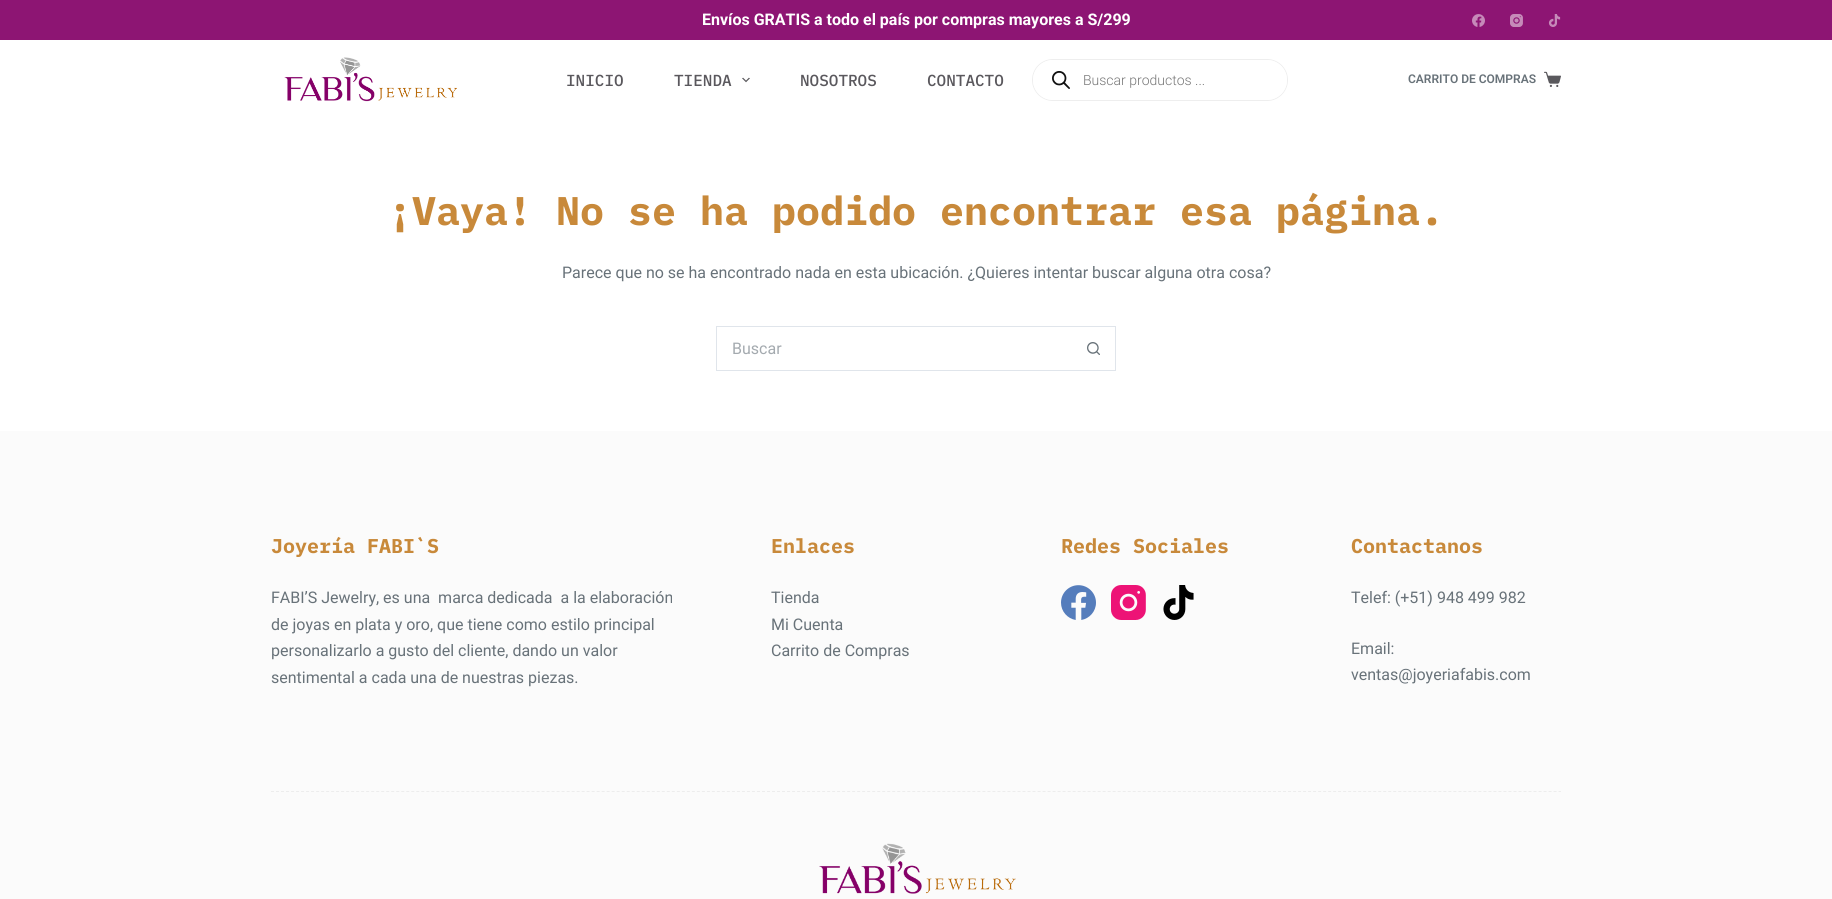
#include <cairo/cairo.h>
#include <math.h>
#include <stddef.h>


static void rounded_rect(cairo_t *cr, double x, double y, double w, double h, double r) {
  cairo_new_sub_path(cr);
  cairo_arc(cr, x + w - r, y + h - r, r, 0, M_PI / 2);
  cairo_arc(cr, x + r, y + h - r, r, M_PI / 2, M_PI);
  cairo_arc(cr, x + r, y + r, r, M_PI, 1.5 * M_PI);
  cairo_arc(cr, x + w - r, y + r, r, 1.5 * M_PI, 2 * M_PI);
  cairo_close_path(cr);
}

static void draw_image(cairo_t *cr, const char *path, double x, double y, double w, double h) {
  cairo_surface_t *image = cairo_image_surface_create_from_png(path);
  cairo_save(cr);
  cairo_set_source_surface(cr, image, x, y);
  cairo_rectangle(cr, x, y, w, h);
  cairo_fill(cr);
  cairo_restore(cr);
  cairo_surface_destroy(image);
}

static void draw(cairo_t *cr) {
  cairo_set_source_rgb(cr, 1, 1, 1);
  cairo_paint(cr);
  cairo_set_source_rgb(cr, 141 / 255.0, 21 / 255.0, 115 / 255.0);
  cairo_rectangle(cr, 0, 0, 1832, 40);
  cairo_fill(cr);
  draw_image(cr, "images/1.png", 1472, 14, 13, 13);
  draw_image(cr, "images/2.png", 1510, 14, 13, 13);
  draw_image(cr, "images/3.png", 1548, 14, 13, 13);
  draw_image(cr, "images/4.png", 284, 57, 173, 45);
  draw_image(cr, "images/5.png", 742, 77, 8, 6);
  rounded_rect(cr, 1032.5, 59.5, 255, 41, 20.5);
  cairo_set_source_rgb(cr, 238 / 255.0, 238 / 255.0, 238 / 255.0);
  cairo_set_line_width(cr, 1);
  cairo_stroke(cr);
  cairo_set_source_rgb(cr, 1, 1, 1);
  rounded_rect(cr, 1033, 60, 254, 40, 20);
  cairo_fill(cr);
  draw_image(cr, "images/6.png", 1052, 71, 18, 18);
  draw_image(cr, "images/7.png", 1544, 71, 17, 16);
  cairo_set_source_rgb(cr, 224 / 255.0, 229 / 255.0, 235 / 255.0);
  cairo_rectangle(cr, 716, 326, 400, 1);
  cairo_fill(cr);
  cairo_rectangle(cr, 716, 370, 355, 1);
  cairo_fill(cr);
  cairo_rectangle(cr, 716, 326, 1, 45);
  cairo_fill(cr);
  cairo_rectangle(cr, 1115, 326, 1, 45);
  cairo_fill(cr);
  cairo_rectangle(cr, 1071, 370, 45, 1);
  cairo_fill(cr);
  draw_image(cr, "images/8.png", 1087, 342, 13, 13);
  cairo_set_source_rgb(cr, 251 / 255.0, 251 / 255.0, 251 / 255.0);
  cairo_rectangle(cr, 0, 431, 1832, 468);
  cairo_fill(cr);
  draw_image(cr, "images/9.png", 1061, 585, 35, 35);
  draw_image(cr, "images/10.png", 1111, 585, 35, 35);
  draw_image(cr, "images/11.png", 1163, 585, 31, 35);
  cairo_new_path(cr);
  cairo_move_to(cr, 271, 791.5);
  cairo_line_to(cr, 1561, 791.5);
  cairo_set_source_rgb(cr, 237 / 255.0, 237 / 255.0, 237 / 255.0);
  cairo_set_dash(cr, (double[]){3, 2.01}, 2, 0);
  cairo_stroke(cr);
  draw_image(cr, "images/12.png", 819, 843, 197, 51);
  cairo_select_font_face(cr, "Roboto", CAIRO_FONT_SLANT_NORMAL, CAIRO_FONT_WEIGHT_BOLD);
  cairo_set_font_size(cr, 16);
  cairo_set_source_rgb(cr, 1, 1, 1);
  cairo_move_to(cr, 702, 25);
  cairo_show_text(cr, "Envíos GRATIS a todo el país por compras mayores a S/299");
  cairo_select_font_face(cr, "IBM Plex Mono Medium", CAIRO_FONT_SLANT_NORMAL, CAIRO_FONT_WEIGHT_NORMAL);
  cairo_set_source_rgb(cr, 90 / 255.0, 88 / 255.0, 93 / 255.0);
  cairo_move_to(cr, 566, 86);
  cairo_show_text(cr, "INICIO");
  cairo_move_to(cr, 674, 86);
  cairo_show_text(cr, "TIENDA");
  cairo_move_to(cr, 800, 86);
  cairo_show_text(cr, "NOSOTROS");
  cairo_move_to(cr, 927, 86);
  cairo_show_text(cr, "CONTACTO");
  cairo_select_font_face(cr, "Roboto Light", CAIRO_FONT_SLANT_NORMAL, CAIRO_FONT_WEIGHT_NORMAL);
  cairo_set_font_size(cr, 14);
  cairo_set_source_rgb(cr, 119 / 255.0, 119 / 255.0, 119 / 255.0);
  cairo_move_to(cr, 1083, 85);
  cairo_show_text(cr, "Buscar productos ...");
  cairo_select_font_face(cr, "Roboto SemiBold", CAIRO_FONT_SLANT_NORMAL, CAIRO_FONT_WEIGHT_NORMAL);
  cairo_set_font_size(cr, 12);
  cairo_set_source_rgb(cr, 104 / 255.0, 114 / 255.0, 121 / 255.0);
  cairo_move_to(cr, 1408, 83);
  cairo_show_text(cr, "CARRITO DE COMPRAS");
  cairo_select_font_face(cr, "IBM Plex Mono", CAIRO_FONT_SLANT_NORMAL, CAIRO_FONT_WEIGHT_BOLD);
  cairo_set_font_size(cr, 40);
  cairo_set_source_rgb(cr, 200 / 255.0, 137 / 255.0, 58 / 255.0);
  cairo_move_to(cr, 388, 225);
  cairo_show_text(cr, "¡Vaya! No se ha podido encontrar esa página.");
  cairo_select_font_face(cr, "Roboto", CAIRO_FONT_SLANT_NORMAL, CAIRO_FONT_WEIGHT_NORMAL);
  cairo_set_font_size(cr, 16);
  cairo_set_source_rgb(cr, 104 / 255.0, 114 / 255.0, 121 / 255.0);
  cairo_move_to(cr, 562, 278);
  cairo_show_text(cr, "Parece que no se ha encontrado nada en esta ubicación. ¿Quieres intentar buscar alguna otra cosa?");
  cairo_set_source_rgb(cr, 164 / 255.0, 170 / 255.0, 175 / 255.0);
  cairo_move_to(cr, 732, 354);
  cairo_show_text(cr, "Buscar");
  cairo_select_font_face(cr, "IBM Plex Mono", CAIRO_FONT_SLANT_NORMAL, CAIRO_FONT_WEIGHT_BOLD);
  cairo_set_font_size(cr, 20);
  cairo_set_source_rgb(cr, 200 / 255.0, 137 / 255.0, 58 / 255.0);
  cairo_move_to(cr, 271, 553);
  cairo_show_text(cr, "Joyería FABI`S");
  cairo_select_font_face(cr, "Roboto", CAIRO_FONT_SLANT_NORMAL, CAIRO_FONT_WEIGHT_NORMAL);
  cairo_set_font_size(cr, 16);
  cairo_set_source_rgb(cr, 104 / 255.0, 114 / 255.0, 121 / 255.0);
  cairo_move_to(cr, 271, 603);
  cairo_show_text(cr, "FABI’S Jewelry, es una  marca dedicada  a la elaboración");
  cairo_move_to(cr, 271, 630);
  cairo_show_text(cr, "de joyas en plata y oro, que tiene como estilo principal");
  cairo_move_to(cr, 271, 656);
  cairo_show_text(cr, "personalizarlo a gusto del cliente, dando un valor");
  cairo_move_to(cr, 271, 683);
  cairo_show_text(cr, "sentimental a cada una de nuestras piezas.");
  cairo_select_font_face(cr, "IBM Plex Mono", CAIRO_FONT_SLANT_NORMAL, CAIRO_FONT_WEIGHT_BOLD);
  cairo_set_font_size(cr, 20);
  cairo_set_source_rgb(cr, 200 / 255.0, 137 / 255.0, 58 / 255.0);
  cairo_move_to(cr, 771, 553);
  cairo_show_text(cr, "Enlaces");
  cairo_select_font_face(cr, "Roboto", CAIRO_FONT_SLANT_NORMAL, CAIRO_FONT_WEIGHT_NORMAL);
  cairo_set_font_size(cr, 16);
  cairo_set_source_rgb(cr, 104 / 255.0, 114 / 255.0, 121 / 255.0);
  cairo_move_to(cr, 771, 603);
  cairo_show_text(cr, "Tienda");
  cairo_move_to(cr, 771, 630);
  cairo_show_text(cr, "Mi Cuenta");
  cairo_move_to(cr, 771, 656);
  cairo_show_text(cr, "Carrito de Compras");
  cairo_select_font_face(cr, "IBM Plex Mono", CAIRO_FONT_SLANT_NORMAL, CAIRO_FONT_WEIGHT_BOLD);
  cairo_set_font_size(cr, 20);
  cairo_set_source_rgb(cr, 200 / 255.0, 137 / 255.0, 58 / 255.0);
  cairo_move_to(cr, 1061, 553);
  cairo_show_text(cr, "Redes Sociales");
  cairo_move_to(cr, 1351, 553);
  cairo_show_text(cr, "Contactanos");
  cairo_select_font_face(cr, "Roboto", CAIRO_FONT_SLANT_NORMAL, CAIRO_FONT_WEIGHT_NORMAL);
  cairo_set_font_size(cr, 16);
  cairo_set_source_rgb(cr, 104 / 255.0, 114 / 255.0, 121 / 255.0);
  cairo_move_to(cr, 1351, 603);
  cairo_show_text(cr, "Telef: (+51) 948 499 982");
  cairo_move_to(cr, 1351, 654);
  cairo_show_text(cr, "Email:");
  cairo_move_to(cr, 1351, 680);
  cairo_show_text(cr, "ventas@joyeriafabis.com");
}

int main(void) {
  cairo_surface_t *surface = cairo_image_surface_create(CAIRO_FORMAT_RGB24, 1832, 899);
  cairo_t *cr = cairo_create(surface);
  cairo_font_options_t *options = cairo_font_options_create();
  cairo_font_options_set_hint_metrics(options, CAIRO_HINT_METRICS_OFF);
  cairo_font_options_set_hint_style(options, CAIRO_HINT_STYLE_NONE);
  cairo_set_font_options(cr, options);
  cairo_set_miter_limit(cr, 4);
  draw(cr);
  cairo_surface_write_to_png(surface, "out.png");
  cairo_font_options_destroy(options);
  cairo_destroy(cr);
  cairo_surface_destroy(surface);
  return 0;
}
